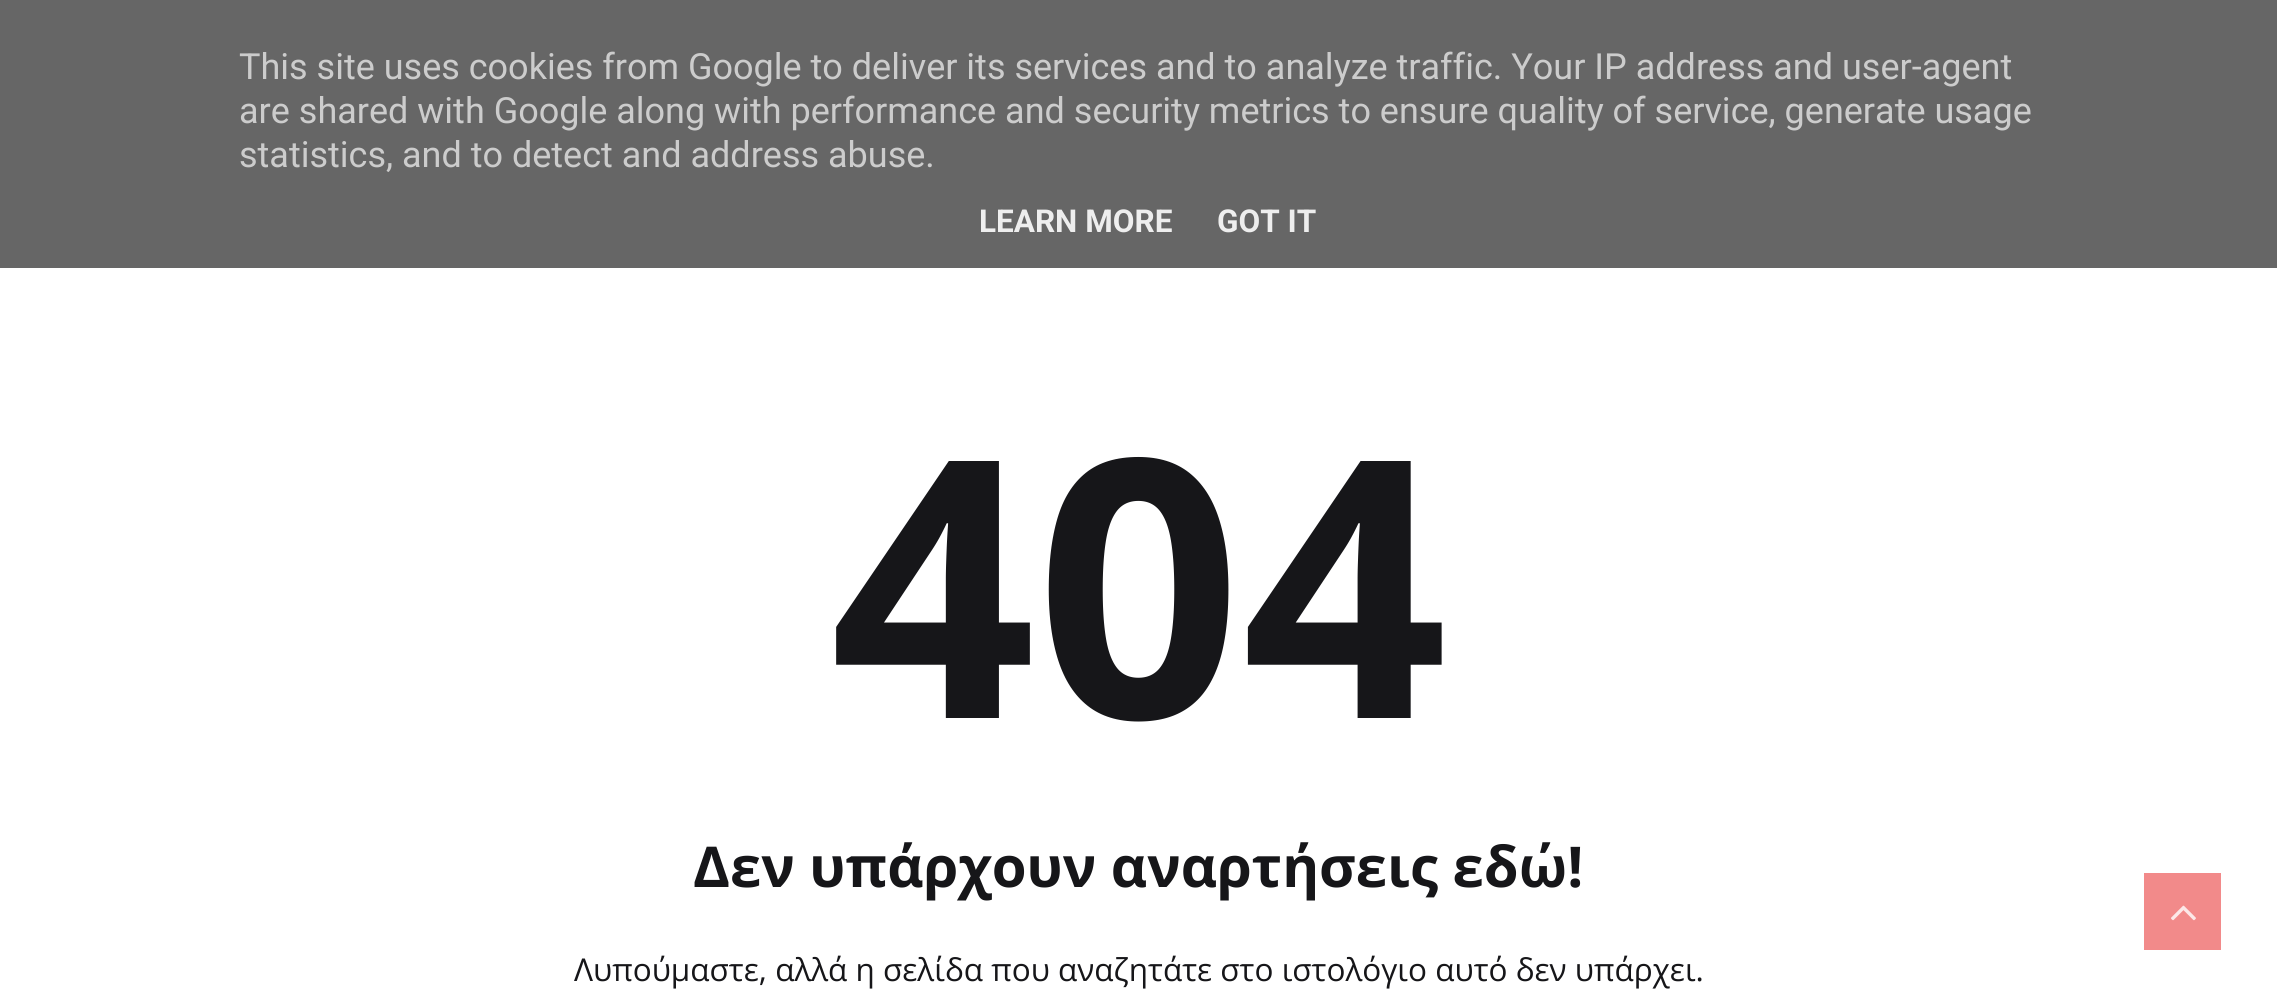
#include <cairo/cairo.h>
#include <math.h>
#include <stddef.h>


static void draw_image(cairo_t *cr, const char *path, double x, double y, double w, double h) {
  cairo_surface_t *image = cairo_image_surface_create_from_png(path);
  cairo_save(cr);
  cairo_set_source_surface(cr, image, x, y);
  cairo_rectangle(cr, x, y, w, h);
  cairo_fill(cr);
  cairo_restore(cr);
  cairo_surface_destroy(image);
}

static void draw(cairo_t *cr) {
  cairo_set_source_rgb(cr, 1, 1, 1);
  cairo_paint(cr);
  cairo_set_source_rgb(cr, 102 / 255.0, 102 / 255.0, 102 / 255.0);
  cairo_rectangle(cr, 0, 0, 2277, 268);
  cairo_fill(cr);
  cairo_set_source_rgb(cr, 242 / 255.0, 138 / 255.0, 138 / 255.0);
  cairo_rectangle(cr, 2144, 873, 77, 77);
  cairo_fill(cr);
  draw_image(cr, "images/1.png", 2171, 905, 25, 16);
  cairo_select_font_face(cr, "Roboto", CAIRO_FONT_SLANT_NORMAL, CAIRO_FONT_WEIGHT_NORMAL);
  cairo_set_font_size(cr, 36);
  cairo_set_source_rgb(cr, 204 / 255.0, 204 / 255.0, 204 / 255.0);
  cairo_move_to(cr, 239, 79);
  cairo_show_text(cr, "This site uses cookies from Google to deliver its services and to analyze traffic. Your IP address and user-agent");
  cairo_move_to(cr, 239, 123);
  cairo_show_text(cr, "are shared with Google along with performance and security metrics to ensure quality of service, generate usage");
  cairo_move_to(cr, 239, 167);
  cairo_show_text(cr, "statistics, and to detect and address abuse.");
  cairo_select_font_face(cr, "Roboto", CAIRO_FONT_SLANT_NORMAL, CAIRO_FONT_WEIGHT_BOLD);
  cairo_set_font_size(cr, 31.5);
  cairo_set_source_rgb(cr, 238 / 255.0, 238 / 255.0, 238 / 255.0);
  cairo_move_to(cr, 979, 232);
  cairo_show_text(cr, "LEARN MORE");
  cairo_move_to(cr, 1217, 232);
  cairo_show_text(cr, "GOT IT");
  cairo_select_font_face(cr, "Open Sans", CAIRO_FONT_SLANT_NORMAL, CAIRO_FONT_WEIGHT_BOLD);
  cairo_set_font_size(cr, 360);
  cairo_set_source_rgb(cr, 22 / 255.0, 22 / 255.0, 25 / 255.0);
  cairo_move_to(cr, 830, 718);
  cairo_show_text(cr, "404");
  cairo_set_font_size(cr, 56.25);
  cairo_move_to(cr, 693, 887);
  cairo_show_text(cr, "Δεν υπάρχουν αναρτήσεις εδώ!");
  cairo_select_font_face(cr, "Open Sans", CAIRO_FONT_SLANT_NORMAL, CAIRO_FONT_WEIGHT_NORMAL);
  cairo_set_font_size(cr, 31.5);
  cairo_move_to(cr, 574, 981);
  cairo_show_text(cr, "Λυπούμαστε, αλλά η σελίδα που αναζητάτε στο ιστολόγιο αυτό δεν υπάρχει.");
}

int main(void) {
  cairo_surface_t *surface = cairo_image_surface_create(CAIRO_FORMAT_RGB24, 2277, 1004);
  cairo_t *cr = cairo_create(surface);
  cairo_font_options_t *options = cairo_font_options_create();
  cairo_font_options_set_hint_metrics(options, CAIRO_HINT_METRICS_OFF);
  cairo_font_options_set_hint_style(options, CAIRO_HINT_STYLE_NONE);
  cairo_set_font_options(cr, options);
  cairo_set_miter_limit(cr, 4);
  draw(cr);
  cairo_surface_write_to_png(surface, "out.png");
  cairo_font_options_destroy(options);
  cairo_destroy(cr);
  cairo_surface_destroy(surface);
  return 0;
}
